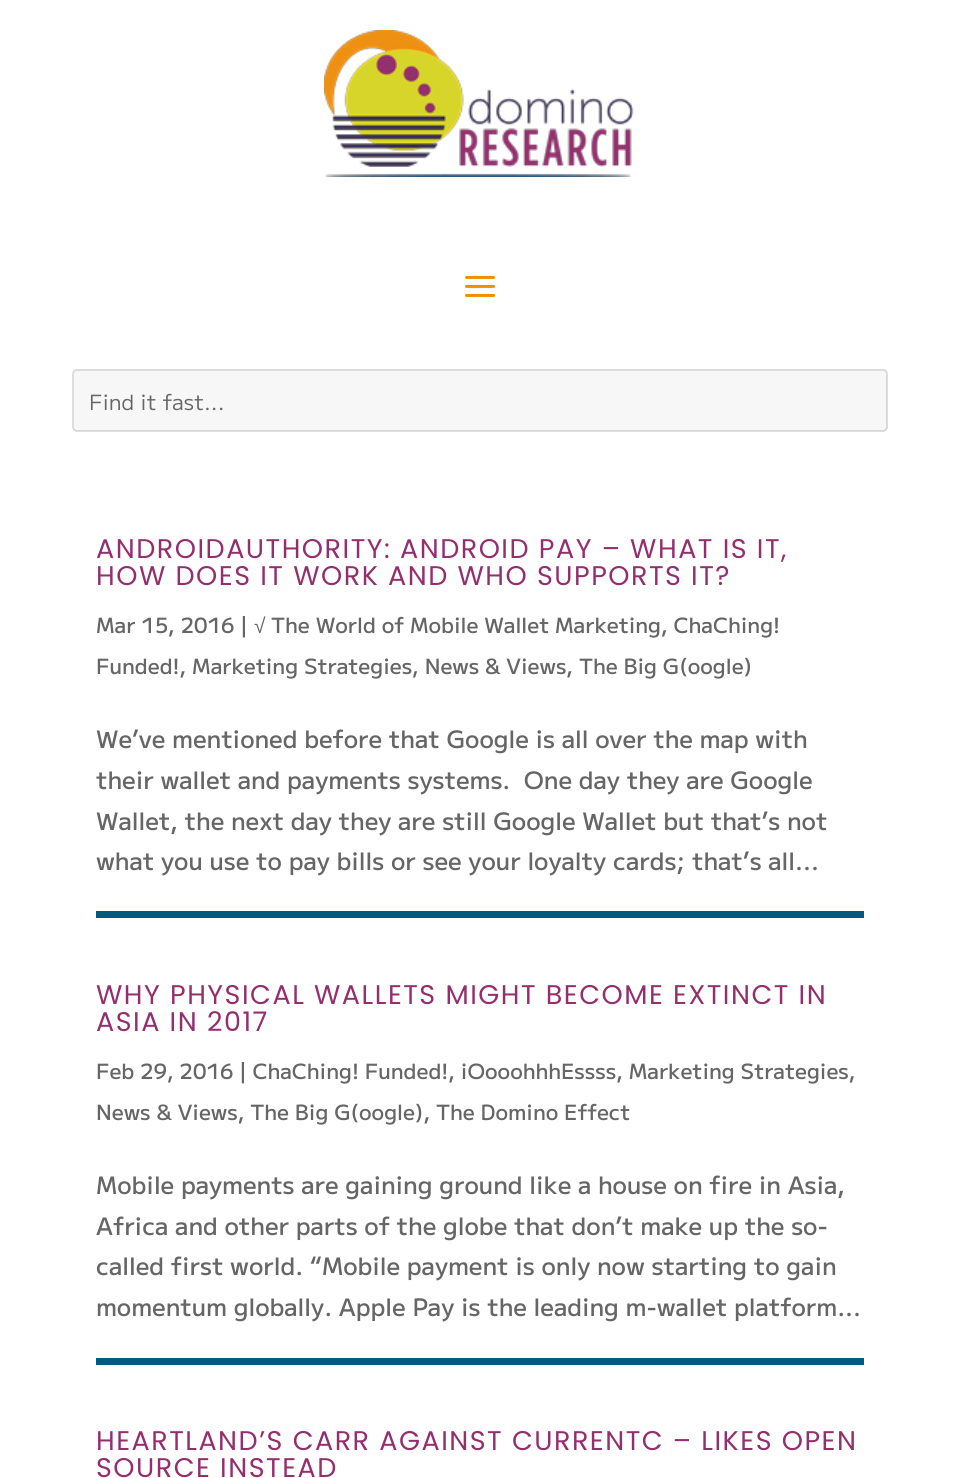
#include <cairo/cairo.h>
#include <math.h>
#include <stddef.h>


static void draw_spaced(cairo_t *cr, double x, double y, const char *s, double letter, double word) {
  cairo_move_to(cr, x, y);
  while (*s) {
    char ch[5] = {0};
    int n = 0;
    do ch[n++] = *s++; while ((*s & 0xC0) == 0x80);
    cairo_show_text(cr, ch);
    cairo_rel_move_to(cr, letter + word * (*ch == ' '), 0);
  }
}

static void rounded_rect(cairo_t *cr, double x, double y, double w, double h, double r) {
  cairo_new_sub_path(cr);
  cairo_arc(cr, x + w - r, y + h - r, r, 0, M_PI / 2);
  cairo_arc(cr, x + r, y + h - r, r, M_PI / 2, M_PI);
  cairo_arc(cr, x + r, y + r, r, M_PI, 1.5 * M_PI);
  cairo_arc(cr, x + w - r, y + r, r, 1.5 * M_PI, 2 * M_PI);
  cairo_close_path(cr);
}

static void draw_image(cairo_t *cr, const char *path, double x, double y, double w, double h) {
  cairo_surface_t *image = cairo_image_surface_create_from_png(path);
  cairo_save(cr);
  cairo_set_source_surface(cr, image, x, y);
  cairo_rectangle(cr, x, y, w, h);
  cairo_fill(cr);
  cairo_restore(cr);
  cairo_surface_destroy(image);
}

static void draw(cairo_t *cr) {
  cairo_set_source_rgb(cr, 1, 1, 1);
  cairo_paint(cr);
  draw_image(cr, "images/1.png", 324, 30, 310, 147);
  draw_image(cr, "images/2.png", 465, 275, 30, 22);
  rounded_rect(cr, 73, 370, 814, 61, 4);
  cairo_set_source_rgb(cr, 221 / 255.0, 221 / 255.0, 221 / 255.0);
  cairo_stroke(cr);
  cairo_set_source_rgba(cr, 178 / 255.0, 178 / 255.0, 178 / 255.0, 0.1);
  rounded_rect(cr, 74, 371, 813, 60, 3);
  cairo_fill(cr);
  cairo_set_source_rgb(cr, 3 / 255.0, 90 / 255.0, 122 / 255.0);
  cairo_rectangle(cr, 96, 911, 768, 7);
  cairo_fill(cr);
  cairo_rectangle(cr, 96, 1358, 768, 7);
  cairo_fill(cr);
  cairo_select_font_face(cr, "M PLUS 2", CAIRO_FONT_SLANT_NORMAL, CAIRO_FONT_WEIGHT_NORMAL);
  cairo_set_font_size(cr, 21);
  cairo_set_source_rgb(cr, 102 / 255.0, 102 / 255.0, 102 / 255.0);
  cairo_move_to(cr, 89, 410);
  cairo_show_text(cr, "Find it fast...");
  cairo_select_font_face(cr, "Poppins", CAIRO_FONT_SLANT_NORMAL, CAIRO_FONT_WEIGHT_NORMAL);
  cairo_set_font_size(cr, 27);
  cairo_set_source_rgb(cr, 147 / 255.0, 47 / 255.0, 109 / 255.0);
  draw_spaced(cr, 96, 558, "ANDROIDAUTHORITY: ANDROID PAY – WHAT IS IT,", 1.5, 0);
  draw_spaced(cr, 96, 585, "HOW DOES IT WORK AND WHO SUPPORTS IT?", 1.5, 0);
  cairo_select_font_face(cr, "M PLUS 2 Medium", CAIRO_FONT_SLANT_NORMAL, CAIRO_FONT_WEIGHT_NORMAL);
  cairo_set_font_size(cr, 21);
  cairo_set_source_rgb(cr, 102 / 255.0, 102 / 255.0, 102 / 255.0);
  cairo_move_to(cr, 96, 633);
  cairo_show_text(cr, "Mar 15, 2016 |");
  cairo_select_font_face(cr, "Liberation Sans", CAIRO_FONT_SLANT_NORMAL, CAIRO_FONT_WEIGHT_NORMAL);
  cairo_move_to(cr, 254, 633);
  cairo_show_text(cr, "√");
  cairo_select_font_face(cr, "M PLUS 2 Medium", CAIRO_FONT_SLANT_NORMAL, CAIRO_FONT_WEIGHT_NORMAL);
  cairo_move_to(cr, 271, 633);
  cairo_show_text(cr, "The World of Mobile Wallet Marketing, ChaChing!");
  cairo_move_to(cr, 96, 674);
  cairo_show_text(cr, "Funded!, Marketing Strategies, News & Views, The Big G(oogle)");
  cairo_set_font_size(cr, 24);
  cairo_move_to(cr, 96, 748);
  cairo_show_text(cr, "We’ve mentioned before that Google is all over the map with");
  cairo_move_to(cr, 96, 789);
  cairo_show_text(cr, "their wallet and payments systems.  One day they are Google");
  cairo_move_to(cr, 96, 830);
  cairo_show_text(cr, "Wallet, the next day they are still Google Wallet but that’s not");
  cairo_move_to(cr, 96, 870);
  cairo_show_text(cr, "what you use to pay bills or see your loyalty cards; that’s all...");
  cairo_select_font_face(cr, "Poppins", CAIRO_FONT_SLANT_NORMAL, CAIRO_FONT_WEIGHT_NORMAL);
  cairo_set_font_size(cr, 27);
  cairo_set_source_rgb(cr, 147 / 255.0, 47 / 255.0, 109 / 255.0);
  draw_spaced(cr, 96, 1004, "WHY PHYSICAL WALLETS MIGHT BECOME EXTINCT IN", 1.5, 0);
  draw_spaced(cr, 96, 1031, "ASIA IN 2017", 1.5, 0);
  cairo_select_font_face(cr, "M PLUS 2 Medium", CAIRO_FONT_SLANT_NORMAL, CAIRO_FONT_WEIGHT_NORMAL);
  cairo_set_font_size(cr, 21);
  cairo_set_source_rgb(cr, 102 / 255.0, 102 / 255.0, 102 / 255.0);
  cairo_move_to(cr, 96, 1079);
  cairo_show_text(cr, "Feb 29, 2016 | ChaChing! Funded!, iOooohhhEssss, Marketing Strategies,");
  cairo_move_to(cr, 96, 1120);
  cairo_show_text(cr, "News & Views, The Big G(oogle), The Domino Effect");
  cairo_set_font_size(cr, 24);
  cairo_move_to(cr, 96, 1194);
  cairo_show_text(cr, "Mobile payments are gaining ground like a house on fire in Asia,");
  cairo_move_to(cr, 96, 1235);
  cairo_show_text(cr, "Africa and other parts of the globe that don’t make up the so-");
  cairo_move_to(cr, 96, 1275);
  cairo_show_text(cr, "called first world. “Mobile payment is only now starting to gain");
  cairo_move_to(cr, 96, 1316);
  cairo_show_text(cr, "momentum globally. Apple Pay is the leading m-wallet platform...");
  cairo_select_font_face(cr, "Poppins", CAIRO_FONT_SLANT_NORMAL, CAIRO_FONT_WEIGHT_NORMAL);
  cairo_set_font_size(cr, 27);
  cairo_set_source_rgb(cr, 147 / 255.0, 47 / 255.0, 109 / 255.0);
  draw_spaced(cr, 96, 1450, "HEARTLAND’S CARR AGAINST CURRENTC – LIKES OPEN", 1.5, 0);
  draw_spaced(cr, 96, 1477, "SOURCE INSTEAD", 1.5, 0);
}

int main(void) {
  cairo_surface_t *surface = cairo_image_surface_create(CAIRO_FORMAT_RGB24, 960, 1478);
  cairo_t *cr = cairo_create(surface);
  cairo_font_options_t *options = cairo_font_options_create();
  cairo_font_options_set_hint_metrics(options, CAIRO_HINT_METRICS_OFF);
  cairo_font_options_set_hint_style(options, CAIRO_HINT_STYLE_NONE);
  cairo_set_font_options(cr, options);
  cairo_set_miter_limit(cr, 4);
  draw(cr);
  cairo_surface_write_to_png(surface, "out.png");
  cairo_font_options_destroy(options);
  cairo_destroy(cr);
  cairo_surface_destroy(surface);
  return 0;
}
